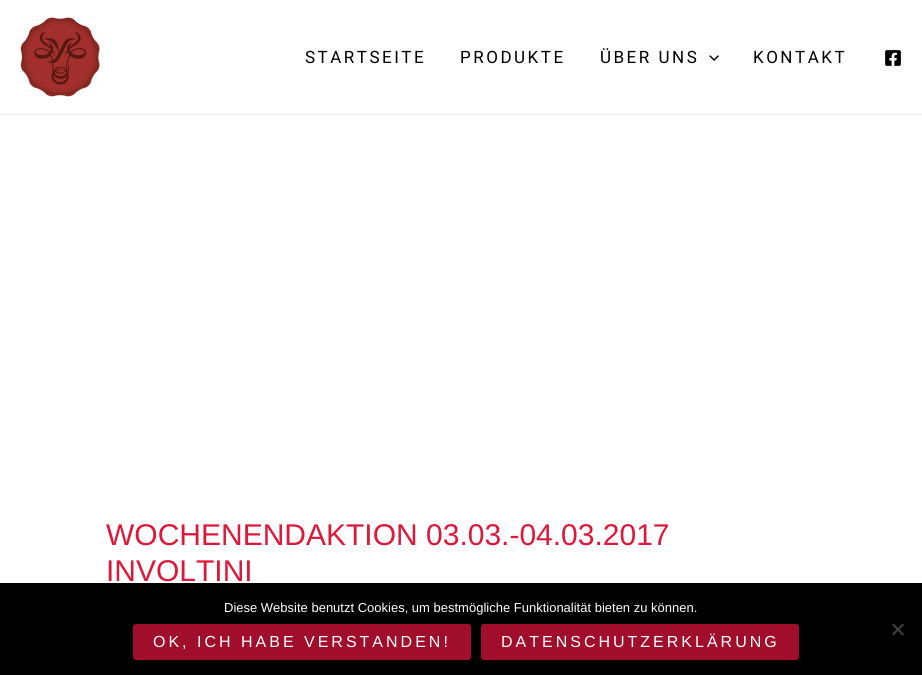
#include <cairo/cairo.h>
#include <math.h>
#include <stddef.h>


static void draw_spaced(cairo_t *cr, double x, double y, const char *s, double letter, double word) {
  cairo_move_to(cr, x, y);
  while (*s) {
    char ch[5] = {0};
    int n = 0;
    do ch[n++] = *s++; while ((*s & 0xC0) == 0x80);
    cairo_show_text(cr, ch);
    cairo_rel_move_to(cr, letter + word * (*ch == ' '), 0);
  }
}

static void rounded_rect(cairo_t *cr, double x, double y, double w, double h, double r) {
  cairo_new_sub_path(cr);
  cairo_arc(cr, x + w - r, y + h - r, r, 0, M_PI / 2);
  cairo_arc(cr, x + r, y + h - r, r, M_PI / 2, M_PI);
  cairo_arc(cr, x + r, y + r, r, M_PI, 1.5 * M_PI);
  cairo_arc(cr, x + w - r, y + r, r, 1.5 * M_PI, 2 * M_PI);
  cairo_close_path(cr);
}

static void draw_image(cairo_t *cr, const char *path, double x, double y, double w, double h) {
  cairo_surface_t *image = cairo_image_surface_create_from_png(path);
  cairo_save(cr);
  cairo_set_source_surface(cr, image, x, y);
  cairo_rectangle(cr, x, y, w, h);
  cairo_fill(cr);
  cairo_restore(cr);
  cairo_surface_destroy(image);
}

static void draw(cairo_t *cr) {
  cairo_set_source_rgb(cr, 1, 1, 1);
  cairo_paint(cr);
  cairo_set_source_rgb(cr, 234 / 255.0, 234 / 255.0, 234 / 255.0);
  cairo_rectangle(cr, 0, 114, 922, 1);
  cairo_fill(cr);
  draw_image(cr, "images/1.png", 20, 17, 80, 80);
  draw_image(cr, "images/2.png", 709, 55, 10, 6);
  draw_image(cr, "images/3.png", 885, 50, 16, 16);
  cairo_set_source_rgb(cr, 0, 0, 0);
  cairo_rectangle(cr, 0, 583, 922, 92);
  cairo_fill(cr);
  cairo_set_source_rgb(cr, 64 / 255.0, 64 / 255.0, 64 / 255.0);
  cairo_new_path(cr);
  cairo_move_to(cr, 902.5, 623.5);
  cairo_line_to(cr, 904, 625);
  cairo_line_to(cr, 893.5, 635.5);
  cairo_line_to(cr, 892, 634);
  cairo_close_path(cr);
  cairo_fill(cr);
  cairo_new_path(cr);
  cairo_move_to(cr, 892, 625);
  cairo_line_to(cr, 893.5, 623.5);
  cairo_line_to(cr, 904, 634);
  cairo_line_to(cr, 902.5, 635.5);
  cairo_close_path(cr);
  cairo_fill(cr);
  cairo_set_source_rgb(cr, 160 / 255.0, 14 / 255.0, 43 / 255.0);
  rounded_rect(cr, 133, 624, 338, 36, 3);
  cairo_fill(cr);
  rounded_rect(cr, 481, 624, 318, 36, 3);
  cairo_fill(cr);
  cairo_select_font_face(cr, "Roboto", CAIRO_FONT_SLANT_NORMAL, CAIRO_FONT_WEIGHT_NORMAL);
  cairo_set_font_size(cr, 17);
  cairo_set_source_rgb(cr, 0, 0, 0);
  draw_spaced(cr, 305, 63, "STARTSEITE", 2.5, 0);
  draw_spaced(cr, 460, 63, "PRODUKTE", 2.5, 0);
  draw_spaced(cr, 600, 63, "ÜBER UNS", 2.5, 0);
  draw_spaced(cr, 753, 63, "KONTAKT", 2.5, 0);
  cairo_select_font_face(cr, "Liberation Sans", CAIRO_FONT_SLANT_NORMAL, CAIRO_FONT_WEIGHT_NORMAL);
  cairo_set_font_size(cr, 30);
  cairo_set_source_rgb(cr, 221 / 255.0, 24 / 255.0, 59 / 255.0);
  cairo_move_to(cr, 106, 545);
  cairo_show_text(cr, "WOCHENENDAKTION 03.03.-04.03.2017");
  cairo_move_to(cr, 106, 581);
  cairo_show_text(cr, "INVOLTINI");
  cairo_set_font_size(cr, 13);
  cairo_set_source_rgb(cr, 1, 1, 1);
  cairo_move_to(cr, 224, 612);
  cairo_show_text(cr, "Diese Website benutzt Cookies, um bestmögliche Funktionalität bieten zu können.");
  cairo_set_font_size(cr, 16);
  draw_spaced(cr, 153, 647, "OK, ICH HABE VERSTANDEN!", 3, 0);
  draw_spaced(cr, 501, 647, "DATENSCHUTZERKLÄRUNG", 3, 0);
}

int main(void) {
  cairo_surface_t *surface = cairo_image_surface_create(CAIRO_FORMAT_RGB24, 922, 675);
  cairo_t *cr = cairo_create(surface);
  cairo_font_options_t *options = cairo_font_options_create();
  cairo_font_options_set_hint_metrics(options, CAIRO_HINT_METRICS_OFF);
  cairo_font_options_set_hint_style(options, CAIRO_HINT_STYLE_NONE);
  cairo_set_font_options(cr, options);
  cairo_set_miter_limit(cr, 4);
  draw(cr);
  cairo_surface_write_to_png(surface, "out.png");
  cairo_font_options_destroy(options);
  cairo_destroy(cr);
  cairo_surface_destroy(surface);
  return 0;
}
